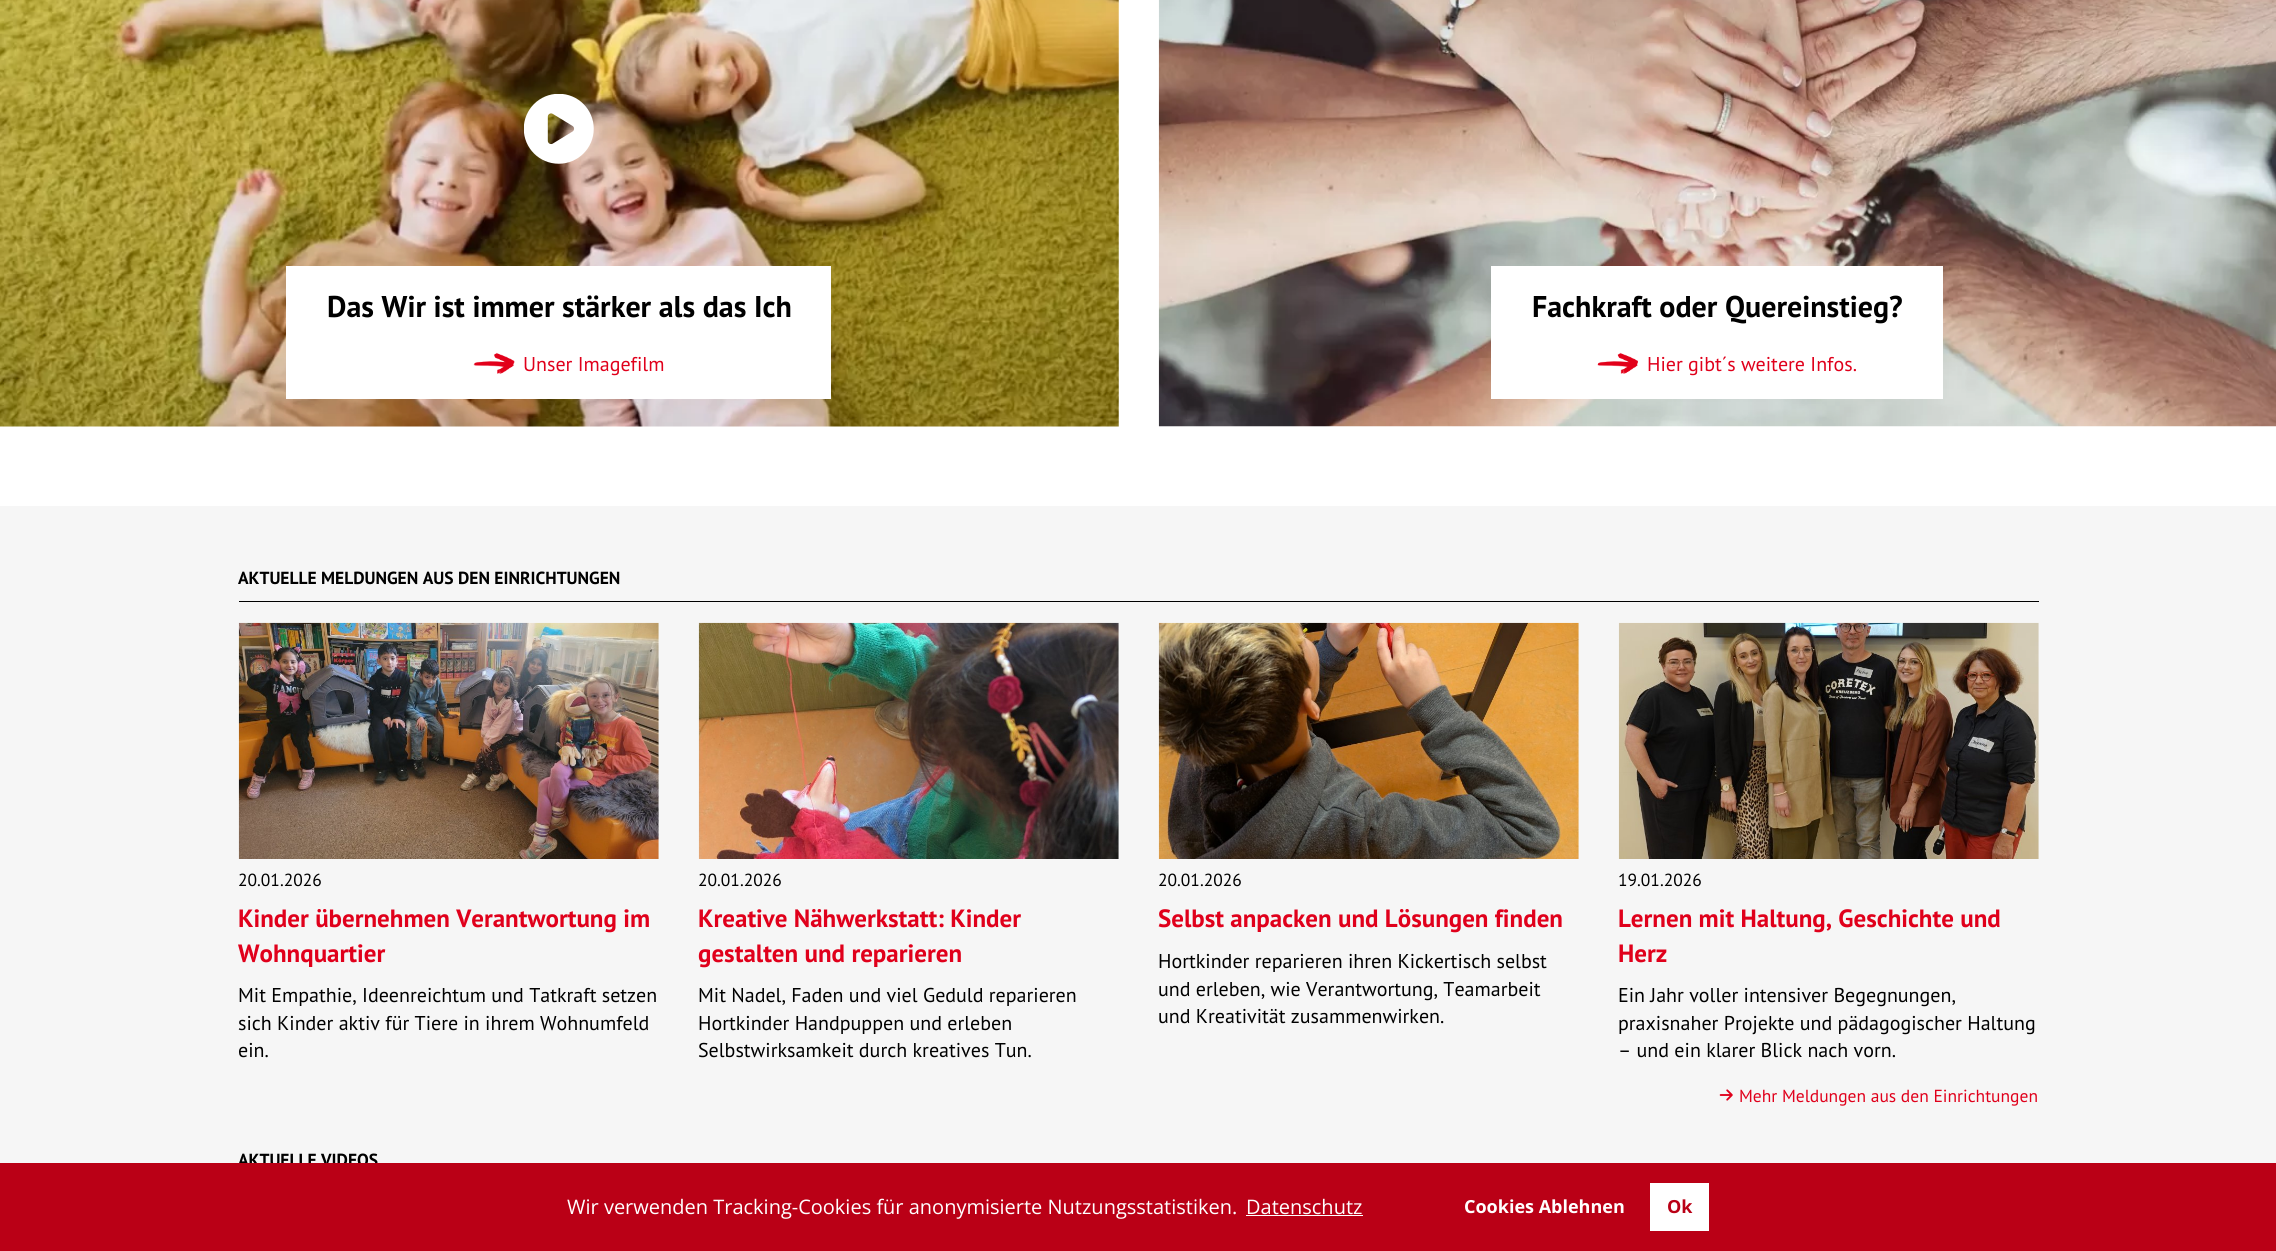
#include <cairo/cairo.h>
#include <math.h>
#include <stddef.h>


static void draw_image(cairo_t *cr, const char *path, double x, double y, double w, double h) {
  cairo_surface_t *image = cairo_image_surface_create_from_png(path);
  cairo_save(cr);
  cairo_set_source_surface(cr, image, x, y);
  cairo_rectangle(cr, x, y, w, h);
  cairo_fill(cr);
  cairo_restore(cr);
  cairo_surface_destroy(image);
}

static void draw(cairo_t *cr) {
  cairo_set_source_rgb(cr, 246 / 255.0, 246 / 255.0, 246 / 255.0);
  cairo_paint(cr);
  cairo_set_source_rgb(cr, 1, 1, 1);
  cairo_rectangle(cr, 0, 0, 2276, 506);
  cairo_fill(cr);
  draw_image(cr, "images/1.png", 0, 0, 1119, 427);
  draw_image(cr, "images/2.png", 524, 94, 70, 70);
  cairo_rectangle(cr, 286, 266, 545, 133);
  cairo_fill(cr);
  draw_image(cr, "images/3.png", 473, 352, 42, 22);
  draw_image(cr, "images/4.png", 1158, 0, 1118, 427);
  cairo_rectangle(cr, 1491, 266, 452, 133);
  cairo_fill(cr);
  draw_image(cr, "images/5.png", 1597, 352, 41, 22);
  cairo_set_source_rgb(cr, 0, 0, 0);
  cairo_rectangle(cr, 239, 601, 1800, 1);
  cairo_fill(cr);
  draw_image(cr, "images/6.png", 238, 622, 421, 237);
  draw_image(cr, "images/7.png", 698, 622, 421, 237);
  draw_image(cr, "images/8.png", 1158, 622, 421, 237);
  draw_image(cr, "images/9.png", 1618, 622, 421, 237);
  draw_image(cr, "images/10.png", 1719, 1089, 14, 12);
  cairo_select_font_face(cr, "PT Sans", CAIRO_FONT_SLANT_NORMAL, CAIRO_FONT_WEIGHT_BOLD);
  cairo_set_font_size(cr, 30);
  cairo_move_to(cr, 327, 317);
  cairo_show_text(cr, "Das Wir ist immer stärker als das Ich");
  cairo_select_font_face(cr, "PT Sans", CAIRO_FONT_SLANT_NORMAL, CAIRO_FONT_WEIGHT_NORMAL);
  cairo_set_font_size(cr, 20);
  cairo_set_source_rgb(cr, 224 / 255.0, 0, 27 / 255.0);
  cairo_move_to(cr, 523, 371);
  cairo_show_text(cr, "Unser Imagefilm");
  cairo_select_font_face(cr, "PT Sans", CAIRO_FONT_SLANT_NORMAL, CAIRO_FONT_WEIGHT_BOLD);
  cairo_set_font_size(cr, 30);
  cairo_set_source_rgb(cr, 0, 0, 0);
  cairo_move_to(cr, 1532, 317);
  cairo_show_text(cr, "Fachkraft oder Quereinstieg?");
  cairo_select_font_face(cr, "PT Sans", CAIRO_FONT_SLANT_NORMAL, CAIRO_FONT_WEIGHT_NORMAL);
  cairo_set_font_size(cr, 20);
  cairo_set_source_rgb(cr, 224 / 255.0, 0, 27 / 255.0);
  cairo_move_to(cr, 1647, 371);
  cairo_show_text(cr, "Hier gibt´s weitere Infos.");
  cairo_select_font_face(cr, "PT Sans", CAIRO_FONT_SLANT_NORMAL, CAIRO_FONT_WEIGHT_BOLD);
  cairo_set_font_size(cr, 17.5);
  cairo_set_source_rgb(cr, 0, 0, 0);
  cairo_move_to(cr, 238, 584);
  cairo_show_text(cr, "AKTUELLE MELDUNGEN AUS DEN EINRICHTUNGEN");
  cairo_select_font_face(cr, "PT Sans", CAIRO_FONT_SLANT_NORMAL, CAIRO_FONT_WEIGHT_NORMAL);
  cairo_move_to(cr, 238, 886);
  cairo_show_text(cr, "20.01.2026");
  cairo_select_font_face(cr, "PT Sans", CAIRO_FONT_SLANT_NORMAL, CAIRO_FONT_WEIGHT_BOLD);
  cairo_set_font_size(cr, 25);
  cairo_set_source_rgb(cr, 224 / 255.0, 0, 27 / 255.0);
  cairo_move_to(cr, 238, 927);
  cairo_show_text(cr, "Kinder übernehmen Verantwortung im");
  cairo_move_to(cr, 238, 962);
  cairo_show_text(cr, "Wohnquartier");
  cairo_select_font_face(cr, "PT Sans", CAIRO_FONT_SLANT_NORMAL, CAIRO_FONT_WEIGHT_NORMAL);
  cairo_set_font_size(cr, 20);
  cairo_set_source_rgb(cr, 0, 0, 0);
  cairo_move_to(cr, 238, 1002);
  cairo_show_text(cr, "Mit Empathie, Ideenreichtum und Tatkraft setzen");
  cairo_move_to(cr, 238, 1030);
  cairo_show_text(cr, "sich Kinder aktiv für Tiere in ihrem Wohnumfeld");
  cairo_move_to(cr, 238, 1057);
  cairo_show_text(cr, "ein.");
  cairo_set_font_size(cr, 17.5);
  cairo_move_to(cr, 698, 886);
  cairo_show_text(cr, "20.01.2026");
  cairo_select_font_face(cr, "PT Sans", CAIRO_FONT_SLANT_NORMAL, CAIRO_FONT_WEIGHT_BOLD);
  cairo_set_font_size(cr, 25);
  cairo_set_source_rgb(cr, 224 / 255.0, 0, 27 / 255.0);
  cairo_move_to(cr, 698, 927);
  cairo_show_text(cr, "Kreative Nähwerkstatt: Kinder");
  cairo_move_to(cr, 698, 962);
  cairo_show_text(cr, "gestalten und reparieren");
  cairo_select_font_face(cr, "PT Sans", CAIRO_FONT_SLANT_NORMAL, CAIRO_FONT_WEIGHT_NORMAL);
  cairo_set_font_size(cr, 20);
  cairo_set_source_rgb(cr, 0, 0, 0);
  cairo_move_to(cr, 698, 1002);
  cairo_show_text(cr, "Mit Nadel, Faden und viel Geduld reparieren");
  cairo_move_to(cr, 698, 1030);
  cairo_show_text(cr, "Hortkinder Handpuppen und erleben");
  cairo_move_to(cr, 698, 1057);
  cairo_show_text(cr, "Selbstwirksamkeit durch kreatives Tun.");
  cairo_set_font_size(cr, 17.5);
  cairo_move_to(cr, 1158, 886);
  cairo_show_text(cr, "20.01.2026");
  cairo_select_font_face(cr, "PT Sans", CAIRO_FONT_SLANT_NORMAL, CAIRO_FONT_WEIGHT_BOLD);
  cairo_set_font_size(cr, 25);
  cairo_set_source_rgb(cr, 224 / 255.0, 0, 27 / 255.0);
  cairo_move_to(cr, 1158, 927);
  cairo_show_text(cr, "Selbst anpacken und Lösungen finden");
  cairo_select_font_face(cr, "PT Sans", CAIRO_FONT_SLANT_NORMAL, CAIRO_FONT_WEIGHT_NORMAL);
  cairo_set_font_size(cr, 20);
  cairo_set_source_rgb(cr, 0, 0, 0);
  cairo_move_to(cr, 1158, 968);
  cairo_show_text(cr, "Hortkinder reparieren ihren Kickertisch selbst");
  cairo_move_to(cr, 1158, 996);
  cairo_show_text(cr, "und erleben, wie Verantwortung, Teamarbeit");
  cairo_move_to(cr, 1158, 1023);
  cairo_show_text(cr, "und Kreativität zusammenwirken.");
  cairo_set_font_size(cr, 17.5);
  cairo_move_to(cr, 1618, 886);
  cairo_show_text(cr, "19.01.2026");
  cairo_select_font_face(cr, "PT Sans", CAIRO_FONT_SLANT_NORMAL, CAIRO_FONT_WEIGHT_BOLD);
  cairo_set_font_size(cr, 25);
  cairo_set_source_rgb(cr, 224 / 255.0, 0, 27 / 255.0);
  cairo_move_to(cr, 1618, 927);
  cairo_show_text(cr, "Lernen mit Haltung, Geschichte und");
  cairo_move_to(cr, 1618, 962);
  cairo_show_text(cr, "Herz");
  cairo_select_font_face(cr, "PT Sans", CAIRO_FONT_SLANT_NORMAL, CAIRO_FONT_WEIGHT_NORMAL);
  cairo_set_font_size(cr, 20);
  cairo_set_source_rgb(cr, 0, 0, 0);
  cairo_move_to(cr, 1618, 1002);
  cairo_show_text(cr, "Ein Jahr voller intensiver Begegnungen,");
  cairo_move_to(cr, 1618, 1030);
  cairo_show_text(cr, "praxisnaher Projekte und pädagogischer Haltung");
  cairo_move_to(cr, 1618, 1057);
  cairo_show_text(cr, "– und ein klarer Blick nach vorn.");
  cairo_set_font_size(cr, 17.5);
  cairo_set_source_rgb(cr, 224 / 255.0, 0, 27 / 255.0);
  cairo_move_to(cr, 1739, 1102);
  cairo_show_text(cr, "Mehr Meldungen aus den Einrichtungen");
  cairo_select_font_face(cr, "PT Sans", CAIRO_FONT_SLANT_NORMAL, CAIRO_FONT_WEIGHT_BOLD);
  cairo_set_source_rgb(cr, 0, 0, 0);
  cairo_move_to(cr, 238, 1166);
  cairo_show_text(cr, "AKTUELLE VIDEOS");
  cairo_set_source_rgb(cr, 186 / 255.0, 0, 22 / 255.0);
  cairo_rectangle(cr, 0, 1163, 2276, 88);
  cairo_fill(cr);
  cairo_select_font_face(cr, "Open Sans", CAIRO_FONT_SLANT_NORMAL, CAIRO_FONT_WEIGHT_NORMAL);
  cairo_set_font_size(cr, 20);
  cairo_set_source_rgb(cr, 1, 1, 1);
  cairo_move_to(cr, 567, 1214);
  cairo_show_text(cr, "Wir verwenden Tracking-Cookies für anonymisierte Nutzungsstatistiken.");
  cairo_move_to(cr, 1246, 1214);
  cairo_show_text(cr, "Datenschutz");
  cairo_rectangle(cr, 1246, 1215, 117, 1);
  cairo_fill(cr);
  cairo_select_font_face(cr, "Open Sans", CAIRO_FONT_SLANT_NORMAL, CAIRO_FONT_WEIGHT_BOLD);
  cairo_set_font_size(cr, 18);
  cairo_move_to(cr, 1464, 1213);
  cairo_show_text(cr, "Cookies Ablehnen");
  cairo_rectangle(cr, 1650, 1183, 59, 48);
  cairo_fill(cr);
  cairo_set_source_rgb(cr, 186 / 255.0, 0, 22 / 255.0);
  cairo_move_to(cr, 1667, 1213);
  cairo_show_text(cr, "Ok");
}

int main(void) {
  cairo_surface_t *surface = cairo_image_surface_create(CAIRO_FORMAT_RGB24, 2276, 1251);
  cairo_t *cr = cairo_create(surface);
  cairo_font_options_t *options = cairo_font_options_create();
  cairo_font_options_set_hint_metrics(options, CAIRO_HINT_METRICS_OFF);
  cairo_font_options_set_hint_style(options, CAIRO_HINT_STYLE_NONE);
  cairo_set_font_options(cr, options);
  cairo_set_miter_limit(cr, 4);
  draw(cr);
  cairo_surface_write_to_png(surface, "out.png");
  cairo_font_options_destroy(options);
  cairo_destroy(cr);
  cairo_surface_destroy(surface);
  return 0;
}
